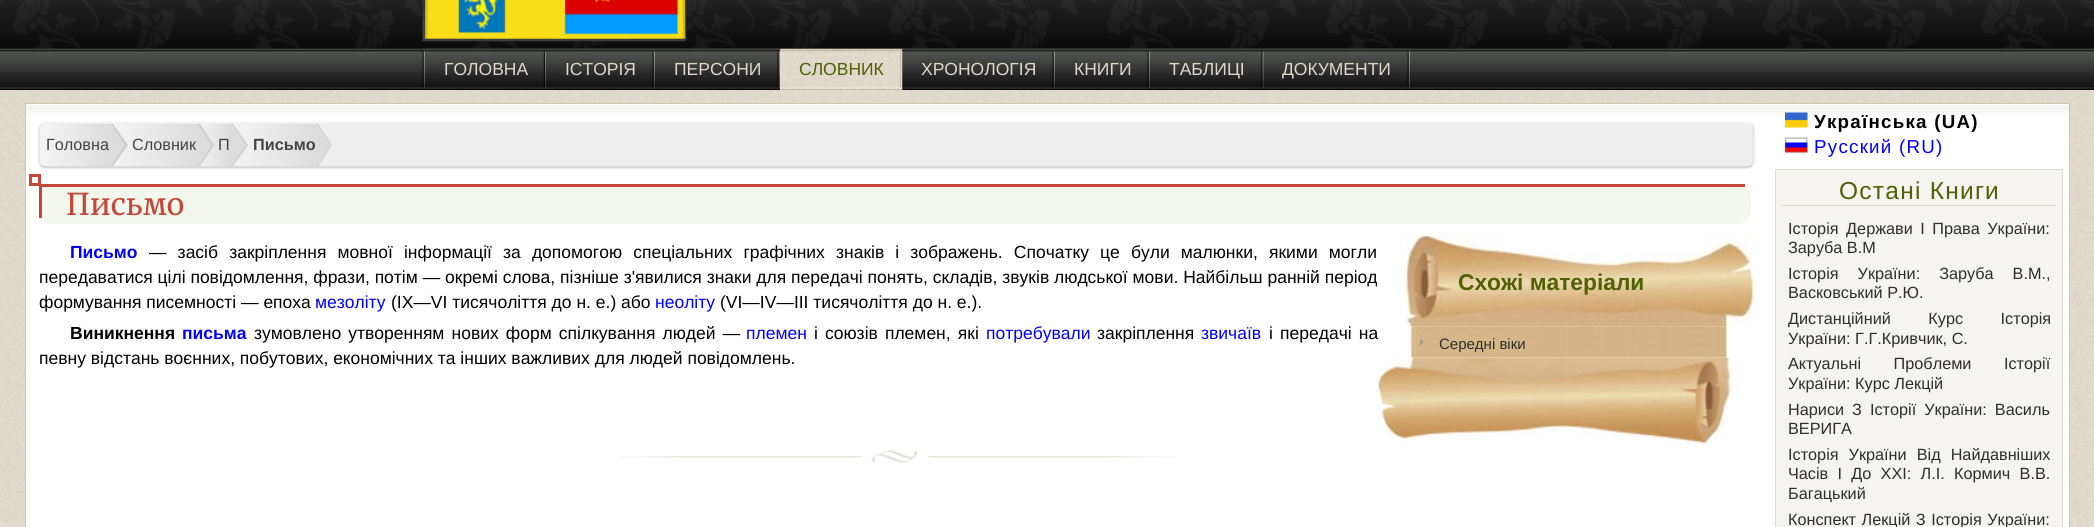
#include <cairo/cairo.h>
#include <math.h>
#include <stddef.h>


static void draw_spaced(cairo_t *cr, double x, double y, const char *s, double letter, double word) {
  cairo_move_to(cr, x, y);
  while (*s) {
    char ch[5] = {0};
    int n = 0;
    do ch[n++] = *s++; while ((*s & 0xC0) == 0x80);
    cairo_show_text(cr, ch);
    cairo_rel_move_to(cr, letter + word * (*ch == ' '), 0);
  }
}

static void rounded_rect(cairo_t *cr, double x, double y, double w, double h, double r) {
  cairo_new_sub_path(cr);
  cairo_arc(cr, x + w - r, y + h - r, r, 0, M_PI / 2);
  cairo_arc(cr, x + r, y + h - r, r, M_PI / 2, M_PI);
  cairo_arc(cr, x + r, y + r, r, M_PI, 1.5 * M_PI);
  cairo_arc(cr, x + w - r, y + r, r, 1.5 * M_PI, 2 * M_PI);
  cairo_close_path(cr);
}

static void draw_shadow(cairo_t *cr, double x, double y, double w, double h, double r, double blur, double alpha) {
  cairo_push_group_with_content(cr, CAIRO_CONTENT_ALPHA);
  cairo_set_operator(cr, CAIRO_OPERATOR_SOURCE);
  for (int i = 15; i >= -15 && fmin(w, h) + blur * i / 3 > 0; i -= 2) {
    double e = blur * i / 6;
    cairo_set_source_rgba(cr, 0, 0, 0, alpha * erfc((i - 1) / 8.5) / 2);
    rounded_rect(cr, x - e, y - e, w + 2 * e, h + 2 * e, fmax(0, fmin(r + e + blur * .6, fmin(w, h) / 2 + e)));
    cairo_fill(cr);
  }
  cairo_pattern_t *soft = cairo_pop_group(cr);
  cairo_mask(cr, soft);
  cairo_pattern_destroy(soft);
}

static void draw_image(cairo_t *cr, const char *path, double x, double y, double w, double h) {
  cairo_surface_t *image = cairo_image_surface_create_from_png(path);
  cairo_save(cr);
  cairo_set_source_surface(cr, image, x, y);
  cairo_rectangle(cr, x, y, w, h);
  cairo_fill(cr);
  cairo_restore(cr);
  cairo_surface_destroy(image);
}

static void draw(cairo_t *cr) {
  cairo_pattern_t *gradient;
  cairo_set_source_rgb(cr, 1, 1, 1);
  cairo_paint(cr);
  draw_image(cr, "images/1.png", 0, 90, 2094, 437);
  draw_image(cr, "images/2.png", 0, 0, 2094, 90);
  draw_image(cr, "images/3.png", 422, 0, 265, 42);
  draw_image(cr, "images/4.png", 422, 48, 3, 40);
  draw_image(cr, "images/5.png", 425, 48, 122, 40);
  draw_image(cr, "images/6.png", 546, 48, 109, 40);
  draw_image(cr, "images/7.png", 655, 48, 125, 40);
  draw_image(cr, "images/8.png", 780, 48, 123, 42);
  draw_image(cr, "images/9.png", 902, 48, 153, 42);
  draw_image(cr, "images/10.png", 1055, 48, 95, 40);
  draw_image(cr, "images/11.png", 1150, 48, 114, 40);
  draw_image(cr, "images/12.png", 1263, 48, 147, 40);
  cairo_set_source_rgb(cr, 1, 1, 1);
  cairo_rectangle(cr, 26, 104, 2043, 423);
  cairo_fill(cr);
  draw_image(cr, "images/13.png", 26, 105, 2043, 10);
  cairo_rectangle(cr, 25.5, 103.5, 2044, 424);
  cairo_set_source_rgb(cr, 207 / 255.0, 201 / 255.0, 180 / 255.0);
  cairo_set_line_width(cr, 1);
  cairo_stroke(cr);
  draw_image(cr, "images/14.png", 617, 450, 562, 13);
  cairo_set_source_rgb(cr, 0, 0, 0);
  draw_shadow(cr, 39, 123, 1715, 45, 6, 1, 0.2);
  cairo_set_source_rgb(cr, 238 / 255.0, 238 / 255.0, 238 / 255.0);
  rounded_rect(cr, 39, 123, 1715, 45, 6);
  cairo_fill(cr);
  cairo_new_path(cr);
  cairo_move_to(cr, 41, 125);
  cairo_curve_to(cr, 42, 123.5, 43.5, 123, 45, 123);
  cairo_line_to(cr, 1747.5, 123);
  cairo_curve_to(cr, 1749, 123, 1750.5, 123.5, 1751.5, 125);
  cairo_set_source_rgb(cr, 245 / 255.0, 245 / 255.0, 245 / 255.0);
  cairo_set_line_width(cr, 1.2);
  cairo_stroke(cr);
  cairo_new_path(cr);
  cairo_move_to(cr, 1751.5, 125);
  cairo_curve_to(cr, 1752.5, 126, 1753, 127.5, 1753, 129);
  cairo_line_to(cr, 1753, 161);
  cairo_curve_to(cr, 1753, 162.5, 1752.5, 164, 1751.5, 165);
  cairo_set_source_rgb(cr, 229 / 255.0, 229 / 255.0, 229 / 255.0);
  cairo_stroke(cr);
  cairo_new_path(cr);
  cairo_move_to(cr, 1751.5, 165);
  cairo_curve_to(cr, 1750.5, 166.5, 1749, 167, 1747.5, 167);
  cairo_line_to(cr, 45, 167);
  cairo_curve_to(cr, 43.5, 167, 42, 166.5, 41, 165);
  cairo_set_source_rgb(cr, 204 / 255.0, 204 / 255.0, 204 / 255.0);
  cairo_stroke(cr);
  cairo_new_path(cr);
  cairo_move_to(cr, 41, 165);
  cairo_curve_to(cr, 40, 164, 39.5, 162.5, 39.5, 161);
  cairo_line_to(cr, 39.5, 129);
  cairo_curve_to(cr, 39.5, 127.5, 40, 126, 41, 125);
  cairo_set_source_rgb(cr, 229 / 255.0, 229 / 255.0, 229 / 255.0);
  cairo_stroke(cr);
  cairo_save(cr);
  rounded_rect(cr, 40, 124, 1713, 42, 5);
  cairo_clip(cr);
  gradient = cairo_pattern_create_linear(40, 145, 109, 145);
  cairo_pattern_add_color_stop_rgba(gradient, 0, 245 / 255.0, 245 / 255.0, 245 / 255.0, 1);
  cairo_pattern_add_color_stop_rgba(gradient, 1, 221 / 255.0, 221 / 255.0, 221 / 255.0, 1);
  cairo_set_source(cr, gradient);
  cairo_pattern_destroy(gradient);
  cairo_new_path(cr);
  cairo_move_to(cr, 46, 124);
  cairo_line_to(cr, 109, 124);
  cairo_line_to(cr, 109, 166);
  cairo_line_to(cr, 46, 166);
  cairo_curve_to(cr, 42.5, 166, 40, 163.5, 40, 160);
  cairo_line_to(cr, 40, 130);
  cairo_curve_to(cr, 40, 126.5, 42.5, 124, 46, 124);
  cairo_close_path(cr);
  cairo_fill(cr);
  cairo_restore(cr);
  gradient = cairo_pattern_create_linear(109, 145, 196, 145);
  cairo_pattern_add_color_stop_rgba(gradient, 0, 245 / 255.0, 245 / 255.0, 245 / 255.0, 1);
  cairo_pattern_add_color_stop_rgba(gradient, 1, 221 / 255.0, 221 / 255.0, 221 / 255.0, 1);
  cairo_set_source(cr, gradient);
  cairo_pattern_destroy(gradient);
  cairo_rectangle(cr, 113, 124, 83, 42);
  cairo_fill(cr);
  cairo_set_source_rgb(cr, 204 / 255.0, 204 / 255.0, 204 / 255.0);
  cairo_new_path(cr);
  cairo_move_to(cr, 113, 124);
  cairo_line_to(cr, 128, 145);
  cairo_line_to(cr, 113, 166);
  cairo_line_to(cr, 111, 166);
  cairo_line_to(cr, 111, 124);
  cairo_close_path(cr);
  cairo_fill(cr);
  gradient = cairo_pattern_create_linear(196, 145, 230, 145);
  cairo_pattern_add_color_stop_rgba(gradient, 0, 245 / 255.0, 245 / 255.0, 245 / 255.0, 1);
  cairo_pattern_add_color_stop_rgba(gradient, 1, 221 / 255.0, 221 / 255.0, 221 / 255.0, 1);
  cairo_set_source(cr, gradient);
  cairo_pattern_destroy(gradient);
  cairo_rectangle(cr, 200, 124, 30, 42);
  cairo_fill(cr);
  gradient = cairo_pattern_create_linear(230, 145, 315, 145);
  cairo_pattern_add_color_stop_rgba(gradient, 0, 245 / 255.0, 245 / 255.0, 245 / 255.0, 1);
  cairo_pattern_add_color_stop_rgba(gradient, 1, 221 / 255.0, 221 / 255.0, 221 / 255.0, 1);
  cairo_set_source(cr, gradient);
  cairo_pattern_destroy(gradient);
  cairo_rectangle(cr, 233, 124, 82, 42);
  cairo_fill(cr);
  cairo_set_source_rgb(cr, 204 / 255.0, 204 / 255.0, 204 / 255.0);
  cairo_new_path(cr);
  cairo_move_to(cr, 318, 124);
  cairo_line_to(cr, 332, 145);
  cairo_line_to(cr, 318, 166);
  cairo_line_to(cr, 316, 166);
  cairo_line_to(cr, 316, 124);
  cairo_close_path(cr);
  cairo_fill(cr);
  cairo_set_source_rgb(cr, 221 / 255.0, 221 / 255.0, 221 / 255.0);
  cairo_new_path(cr);
  cairo_move_to(cr, 317, 124);
  cairo_line_to(cr, 331, 145);
  cairo_line_to(cr, 317, 166);
  cairo_line_to(cr, 315, 166);
  cairo_line_to(cr, 315, 124);
  cairo_close_path(cr);
  cairo_fill(cr);
  cairo_set_source_rgb(cr, 244 / 255.0, 247 / 255.0, 238 / 255.0);
  cairo_new_path(cr);
  cairo_move_to(cr, 39, 184);
  cairo_line_to(cr, 1738, 184);
  cairo_curve_to(cr, 1745, 184, 1751, 190, 1751, 197);
  cairo_line_to(cr, 1751, 211);
  cairo_curve_to(cr, 1751, 218, 1745, 224, 1738, 224);
  cairo_line_to(cr, 52, 224);
  cairo_curve_to(cr, 45, 224, 39, 218, 39, 211);
  cairo_close_path(cr);
  cairo_fill(cr);
  cairo_set_source_rgb(cr, 196 / 255.0, 71 / 255.0, 55 / 255.0);
  cairo_rectangle(cr, 39, 184, 1706, 3);
  cairo_fill(cr);
  cairo_rectangle(cr, 39, 184, 3, 34);
  cairo_fill(cr);
  cairo_rectangle(cr, 30.5, 175.5, 9, 9);
  cairo_set_line_width(cr, 3);
  cairo_stroke(cr);
  draw_image(cr, "images/15.png", 1398, 232, 355, 95);
  draw_image(cr, "images/16.png", 1408, 326, 320, 32);
  draw_image(cr, "images/17.png", 1420, 338, 4, 7);
  draw_image(cr, "images/18.png", 1378, 357, 361, 87);
  draw_image(cr, "images/19.png", 1785, 112, 23, 16);
  draw_image(cr, "images/20.png", 1785, 137, 23, 16);
  cairo_set_source_rgb(cr, 245 / 255.0, 244 / 255.0, 240 / 255.0);
  cairo_rectangle(cr, 1775.5, 169.5, 287, 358);
  cairo_fill_preserve(cr);
  cairo_set_source_rgb(cr, 222 / 255.0, 219 / 255.0, 209 / 255.0);
  cairo_set_line_width(cr, 1);
  cairo_stroke(cr);
  cairo_rectangle(cr, 1781, 205, 275, 1);
  cairo_fill(cr);
  cairo_select_font_face(cr, "Liberation Sans", CAIRO_FONT_SLANT_NORMAL, CAIRO_FONT_WEIGHT_NORMAL);
  cairo_set_font_size(cr, 17.5);
  cairo_set_source_rgb(cr, 221 / 255.0, 216 / 255.0, 203 / 255.0);
  cairo_move_to(cr, 444, 75);
  cairo_show_text(cr, "ГОЛОВНА");
  cairo_move_to(cr, 565, 75);
  cairo_show_text(cr, "ІСТОРІЯ");
  cairo_move_to(cr, 674, 75);
  cairo_show_text(cr, "ПЕРСОНИ");
  cairo_set_source_rgb(cr, 80 / 255.0, 96 / 255.0, 4 / 255.0);
  cairo_move_to(cr, 799, 75);
  cairo_show_text(cr, "СЛОВНИК");
  cairo_set_source_rgb(cr, 221 / 255.0, 216 / 255.0, 203 / 255.0);
  cairo_move_to(cr, 921, 75);
  cairo_show_text(cr, "ХРОНОЛОГІЯ");
  cairo_move_to(cr, 1074, 75);
  cairo_show_text(cr, "КНИГИ");
  cairo_move_to(cr, 1169, 75);
  cairo_show_text(cr, "ТАБЛИЦІ");
  cairo_move_to(cr, 1282, 75);
  cairo_show_text(cr, "ДОКУМЕНТИ");
  cairo_set_font_size(cr, 16.25);
  cairo_set_source_rgb(cr, 68 / 255.0, 68 / 255.0, 68 / 255.0);
  cairo_move_to(cr, 46, 150);
  cairo_show_text(cr, "Головна");
  cairo_set_source_rgb(cr, 221 / 255.0, 221 / 255.0, 221 / 255.0);
  cairo_new_path(cr);
  cairo_move_to(cr, 111, 124);
  cairo_line_to(cr, 125, 145);
  cairo_line_to(cr, 111, 166);
  cairo_line_to(cr, 109, 166);
  cairo_line_to(cr, 109, 124);
  cairo_close_path(cr);
  cairo_fill(cr);
  cairo_set_source_rgb(cr, 68 / 255.0, 68 / 255.0, 68 / 255.0);
  cairo_move_to(cr, 132, 150);
  cairo_show_text(cr, "Словник");
  cairo_move_to(cr, 218, 150);
  cairo_show_text(cr, "П");
  cairo_set_source_rgb(cr, 204 / 255.0, 204 / 255.0, 204 / 255.0);
  cairo_new_path(cr);
  cairo_move_to(cr, 200, 124);
  cairo_line_to(cr, 214, 145);
  cairo_line_to(cr, 200, 166);
  cairo_line_to(cr, 198, 166);
  cairo_line_to(cr, 198, 124);
  cairo_close_path(cr);
  cairo_move_to(cr, 233, 124);
  cairo_line_to(cr, 248, 145);
  cairo_line_to(cr, 233, 166);
  cairo_line_to(cr, 231, 166);
  cairo_line_to(cr, 231, 124);
  cairo_close_path(cr);
  cairo_fill(cr);
  cairo_set_source_rgb(cr, 221 / 255.0, 221 / 255.0, 221 / 255.0);
  cairo_new_path(cr);
  cairo_move_to(cr, 198, 124);
  cairo_line_to(cr, 212, 145);
  cairo_line_to(cr, 198, 166);
  cairo_line_to(cr, 196, 166);
  cairo_line_to(cr, 196, 124);
  cairo_close_path(cr);
  cairo_move_to(cr, 232, 124);
  cairo_line_to(cr, 246, 145);
  cairo_line_to(cr, 232, 166);
  cairo_line_to(cr, 230, 166);
  cairo_line_to(cr, 230, 124);
  cairo_close_path(cr);
  cairo_fill(cr);
  cairo_select_font_face(cr, "Liberation Sans", CAIRO_FONT_SLANT_NORMAL, CAIRO_FONT_WEIGHT_BOLD);
  cairo_set_source_rgb(cr, 68 / 255.0, 68 / 255.0, 68 / 255.0);
  cairo_move_to(cr, 253, 150);
  cairo_show_text(cr, "Письмо");
  cairo_select_font_face(cr, "Merriweather", CAIRO_FONT_SLANT_NORMAL, CAIRO_FONT_WEIGHT_NORMAL);
  cairo_set_font_size(cr, 30);
  cairo_set_source_rgb(cr, 196 / 255.0, 71 / 255.0, 55 / 255.0);
  cairo_move_to(cr, 66, 215);
  cairo_show_text(cr, "Письмо");
  cairo_select_font_face(cr, "Liberation Sans", CAIRO_FONT_SLANT_NORMAL, CAIRO_FONT_WEIGHT_BOLD);
  cairo_set_font_size(cr, 17.5);
  cairo_set_source_rgb(cr, 0, 0, 1);
  cairo_move_to(cr, 70, 258);
  cairo_show_text(cr, "Письмо");
  cairo_select_font_face(cr, "Liberation Sans", CAIRO_FONT_SLANT_NORMAL, CAIRO_FONT_WEIGHT_NORMAL);
  cairo_set_source_rgb(cr, 0, 0, 0);
  draw_spaced(cr, 149, 258, "— засіб закріплення мовної інформації за допомогою спеціальних графічних знаків і зображень. Спочатку це були малюнки, якими могли", 0, 6.25);
  cairo_move_to(cr, 39, 283);
  cairo_show_text(cr, "передаватися цілі повідомлення, фрази, потім — окремі слова, пізніше з'явилися знаки для передачі понять, складів, звуків людської мови. Найбільш ранній період");
  cairo_move_to(cr, 39, 308);
  cairo_show_text(cr, "формування писемності — епоха");
  cairo_set_source_rgb(cr, 0, 0, 1);
  cairo_move_to(cr, 315, 308);
  cairo_show_text(cr, "мезоліту");
  cairo_set_source_rgb(cr, 0, 0, 0);
  cairo_move_to(cr, 391, 308);
  cairo_show_text(cr, "(IX—VI тисячоліття до н. е.) або");
  cairo_set_source_rgb(cr, 0, 0, 1);
  cairo_move_to(cr, 655, 308);
  cairo_show_text(cr, "неоліту");
  cairo_set_source_rgb(cr, 0, 0, 0);
  cairo_move_to(cr, 720, 308);
  cairo_show_text(cr, "(VI—IV—III тисячоліття до н. е.).");
  cairo_select_font_face(cr, "Liberation Sans", CAIRO_FONT_SLANT_NORMAL, CAIRO_FONT_WEIGHT_BOLD);
  cairo_set_font_size(cr, 22.75);
  cairo_set_source_rgb(cr, 80 / 255.0, 96 / 255.0, 4 / 255.0);
  cairo_move_to(cr, 1458, 290);
  cairo_show_text(cr, "Схожі матеріали");
  cairo_select_font_face(cr, "Liberation Sans", CAIRO_FONT_SLANT_NORMAL, CAIRO_FONT_WEIGHT_NORMAL);
  cairo_set_font_size(cr, 15);
  cairo_set_source_rgb(cr, 46 / 255.0, 46 / 255.0, 46 / 255.0);
  cairo_move_to(cr, 1439, 349);
  cairo_show_text(cr, "Середні віки");
  cairo_select_font_face(cr, "Liberation Sans", CAIRO_FONT_SLANT_NORMAL, CAIRO_FONT_WEIGHT_BOLD);
  cairo_set_font_size(cr, 17.5);
  cairo_set_source_rgb(cr, 0, 0, 0);
  cairo_move_to(cr, 70, 339);
  cairo_show_text(cr, "Виникнення");
  cairo_set_source_rgb(cr, 0, 0, 1);
  cairo_move_to(cr, 182, 339);
  cairo_show_text(cr, "письма");
  cairo_select_font_face(cr, "Liberation Sans", CAIRO_FONT_SLANT_NORMAL, CAIRO_FONT_WEIGHT_NORMAL);
  cairo_set_source_rgb(cr, 0, 0, 0);
  draw_spaced(cr, 254, 339, "зумовлено утворенням нових форм спілкування людей —", 0, 2.25);
  cairo_set_source_rgb(cr, 0, 0, 1);
  cairo_move_to(cr, 746, 339);
  cairo_show_text(cr, "племен");
  cairo_set_source_rgb(cr, 0, 0, 0);
  draw_spaced(cr, 814, 339, "і союзів племен, які", 0, 2.25);
  cairo_set_source_rgb(cr, 0, 0, 1);
  cairo_move_to(cr, 986, 339);
  cairo_show_text(cr, "потребували");
  cairo_set_source_rgb(cr, 0, 0, 0);
  cairo_move_to(cr, 1097, 339);
  cairo_show_text(cr, "закріплення");
  cairo_set_source_rgb(cr, 0, 0, 1);
  cairo_move_to(cr, 1201, 339);
  cairo_show_text(cr, "звичаїв");
  cairo_set_source_rgb(cr, 0, 0, 0);
  draw_spaced(cr, 1269, 339, "і передачі на", 0, 2.25);
  cairo_move_to(cr, 39, 364);
  cairo_show_text(cr, "певну відстань воєнних, побутових, економічних та інших важливих для людей повідомлень.");
  cairo_select_font_face(cr, "Liberation Sans", CAIRO_FONT_SLANT_NORMAL, CAIRO_FONT_WEIGHT_BOLD);
  cairo_set_font_size(cr, 18.75);
  draw_spaced(cr, 1814, 128, "Українська (UA)", 1.25, 0);
  cairo_select_font_face(cr, "Liberation Sans", CAIRO_FONT_SLANT_NORMAL, CAIRO_FONT_WEIGHT_NORMAL);
  cairo_set_source_rgb(cr, 0, 0, 1);
  draw_spaced(cr, 1814, 153, "Русский (RU)", 1.25, 0);
  cairo_set_font_size(cr, 24.5);
  cairo_set_source_rgb(cr, 80 / 255.0, 96 / 255.0, 4 / 255.0);
  draw_spaced(cr, 1839, 199, "Остані Книги", 1.25, 0);
  cairo_set_font_size(cr, 16.25);
  cairo_set_source_rgb(cr, 46 / 255.0, 46 / 255.0, 46 / 255.0);
  draw_spaced(cr, 1788, 234, "Історія Держави І Права України:", 0, 3);
  cairo_move_to(cr, 1788, 253);
  cairo_show_text(cr, "Заруба В.М");
  draw_spaced(cr, 1788, 279, "Історія України: Заруба В.М.,", 0, 14.5);
  cairo_move_to(cr, 1788, 298);
  cairo_show_text(cr, "Васковський Р.Ю.");
  draw_spaced(cr, 1788, 324, "Дистанційний Курс Історія", 0, 33);
  cairo_move_to(cr, 1788, 344);
  cairo_show_text(cr, "України: Г.Г.Кривчик, С.");
  draw_spaced(cr, 1788, 369, "Актуальні Проблеми Історії", 0, 28);
  cairo_move_to(cr, 1788, 389);
  cairo_show_text(cr, "України: Курс Лекцій");
  draw_spaced(cr, 1788, 415, "Нариси З Історії України: Василь", 0, 3.5);
  cairo_move_to(cr, 1788, 434);
  cairo_show_text(cr, "ВЕРИГА");
  draw_spaced(cr, 1788, 460, "Історія України Від Найдавніших", 0, 5.5);
  draw_spaced(cr, 1788, 479, "Часів I До XXI: Л.І. Кормич В.В.", 0, 4.75);
  cairo_move_to(cr, 1788, 499);
  cairo_show_text(cr, "Багацький");
  draw_spaced(cr, 1788, 525, "Конспект Лекцій З Історія України:", 0, 1);
}

int main(void) {
  cairo_surface_t *surface = cairo_image_surface_create(CAIRO_FORMAT_RGB24, 2094, 527);
  cairo_t *cr = cairo_create(surface);
  cairo_font_options_t *options = cairo_font_options_create();
  cairo_font_options_set_hint_metrics(options, CAIRO_HINT_METRICS_OFF);
  cairo_font_options_set_hint_style(options, CAIRO_HINT_STYLE_NONE);
  cairo_set_font_options(cr, options);
  cairo_set_miter_limit(cr, 4);
  draw(cr);
  cairo_surface_write_to_png(surface, "out.png");
  cairo_font_options_destroy(options);
  cairo_destroy(cr);
  cairo_surface_destroy(surface);
  return 0;
}
